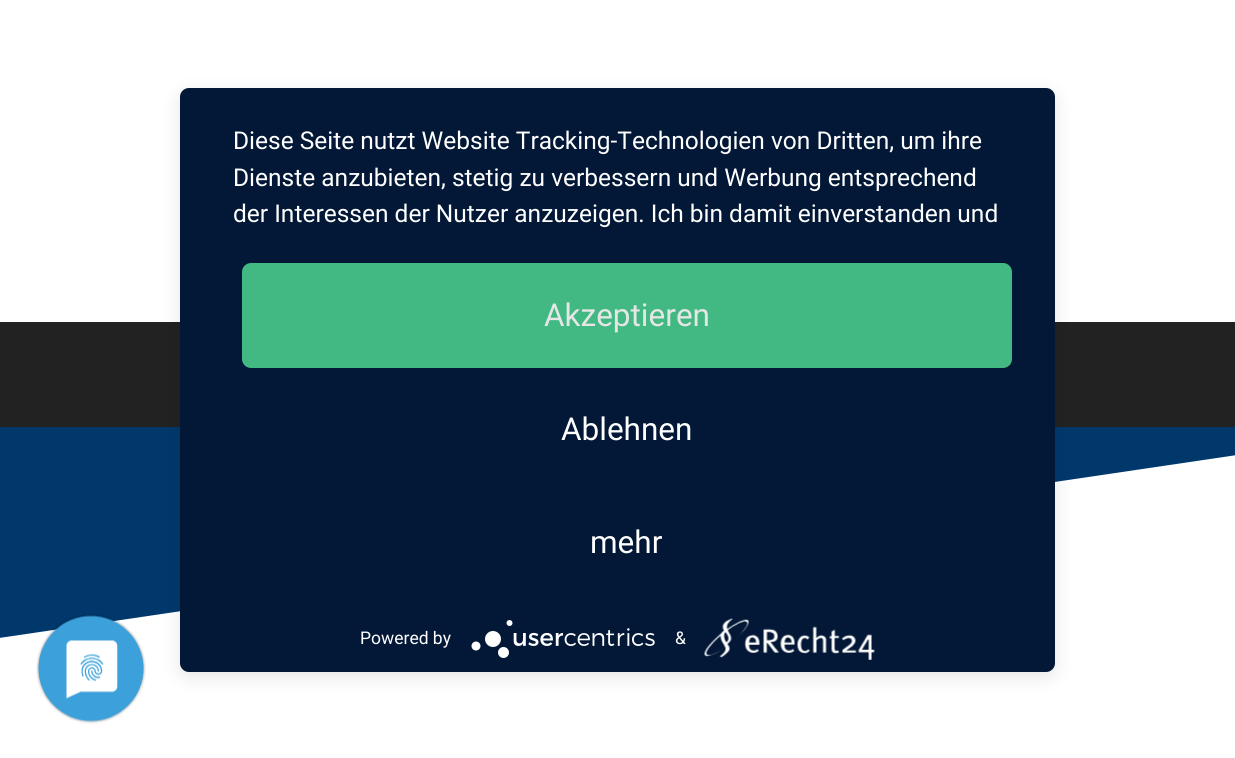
#include <cairo/cairo.h>
#include <math.h>
#include <stddef.h>


static void rounded_rect(cairo_t *cr, double x, double y, double w, double h, double r) {
  cairo_new_sub_path(cr);
  cairo_arc(cr, x + w - r, y + h - r, r, 0, M_PI / 2);
  cairo_arc(cr, x + r, y + h - r, r, M_PI / 2, M_PI);
  cairo_arc(cr, x + r, y + r, r, M_PI, 1.5 * M_PI);
  cairo_arc(cr, x + w - r, y + r, r, 1.5 * M_PI, 2 * M_PI);
  cairo_close_path(cr);
}

static void draw_shadow(cairo_t *cr, double x, double y, double w, double h, double r, double blur, double alpha) {
  cairo_push_group_with_content(cr, CAIRO_CONTENT_ALPHA);
  cairo_set_operator(cr, CAIRO_OPERATOR_SOURCE);
  for (int i = 15; i >= -15 && fmin(w, h) + blur * i / 3 > 0; i -= 2) {
    double e = blur * i / 6;
    cairo_set_source_rgba(cr, 0, 0, 0, alpha * erfc((i - 1) / 8.5) / 2);
    rounded_rect(cr, x - e, y - e, w + 2 * e, h + 2 * e, fmax(0, fmin(r + e + blur * .6, fmin(w, h) / 2 + e)));
    cairo_fill(cr);
  }
  cairo_pattern_t *soft = cairo_pop_group(cr);
  cairo_mask(cr, soft);
  cairo_pattern_destroy(soft);
}

static void draw_image(cairo_t *cr, const char *path, double x, double y, double w, double h) {
  cairo_surface_t *image = cairo_image_surface_create_from_png(path);
  cairo_save(cr);
  cairo_set_source_surface(cr, image, x, y);
  cairo_rectangle(cr, x, y, w, h);
  cairo_fill(cr);
  cairo_restore(cr);
  cairo_surface_destroy(image);
}

static void draw(cairo_t *cr) {
  cairo_set_source_rgb(cr, 1, 1, 1);
  cairo_paint(cr);
  cairo_set_source_rgb(cr, 34 / 255.0, 34 / 255.0, 34 / 255.0);
  cairo_rectangle(cr, 0, 322, 1235, 105);
  cairo_fill(cr);
  cairo_set_source_rgb(cr, 0, 56 / 255.0, 108 / 255.0);
  cairo_rectangle(cr, 0, 427, 1235, 211);
  cairo_fill(cr);
  cairo_set_source_rgb(cr, 1, 1, 1);
  cairo_new_path(cr);
  cairo_move_to(cr, -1, 638);
  cairo_line_to(cr, -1, 649);
  cairo_line_to(cr, 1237, 649);
  cairo_line_to(cr, 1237, 455);
  cairo_close_path(cr);
  cairo_fill(cr);
  cairo_set_source_rgb(cr, 0, 0, 0);
  draw_shadow(cr, 180, 93, 875, 584, 9, 9, 0.1);
  cairo_save(cr);
  rounded_rect(cr, 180, 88, 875, 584, 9);
  cairo_clip(cr);
  draw_shadow(cr, 180, 98, 875, 607, 0, 31.5, 0.3);
  cairo_restore(cr);
  cairo_set_source_rgb(cr, 2 / 255.0, 24 / 255.0, 54 / 255.0);
  rounded_rect(cr, 180, 88, 875, 584, 9);
  cairo_fill(cr);
  cairo_set_source_rgb(cr, 66 / 255.0, 185 / 255.0, 131 / 255.0);
  rounded_rect(cr, 242, 263, 770, 105, 9);
  cairo_fill(cr);
  draw_image(cr, "images/1.png", 471, 620, 184, 38);
  draw_image(cr, "images/2.png", 704, 618, 171, 42);
  draw_image(cr, "images/3.png", 36, 614, 110, 110);
  cairo_select_font_face(cr, "Roboto", CAIRO_FONT_SLANT_NORMAL, CAIRO_FONT_WEIGHT_NORMAL);
  cairo_set_font_size(cr, 24.5);
  cairo_set_source_rgb(cr, 1, 1, 1);
  cairo_move_to(cr, 233, 149);
  cairo_show_text(cr, "Diese Seite nutzt Website Tracking-Technologien von Dritten, um ihre");
  cairo_move_to(cr, 233, 186);
  cairo_show_text(cr, "Dienste anzubieten, stetig zu verbessern und Werbung entsprechend");
  cairo_move_to(cr, 233, 222);
  cairo_show_text(cr, "der Interessen der Nutzer anzuzeigen. Ich bin damit einverstanden und");
  cairo_set_font_size(cr, 31.5);
  cairo_set_source_rgb(cr, 230 / 255.0, 230 / 255.0, 230 / 255.0);
  cairo_move_to(cr, 544, 326);
  cairo_show_text(cr, "Akzeptieren");
  cairo_set_source_rgb(cr, 1, 1, 1);
  cairo_move_to(cr, 561, 440);
  cairo_show_text(cr, "Ablehnen");
  cairo_move_to(cr, 590, 553);
  cairo_show_text(cr, "mehr");
  cairo_set_font_size(cr, 17.5);
  cairo_move_to(cr, 360, 644);
  cairo_show_text(cr, "Powered by");
  cairo_move_to(cr, 675, 644);
  cairo_show_text(cr, "&");
}

int main(void) {
  cairo_surface_t *surface = cairo_image_surface_create(CAIRO_FORMAT_RGB24, 1235, 758);
  cairo_t *cr = cairo_create(surface);
  cairo_font_options_t *options = cairo_font_options_create();
  cairo_font_options_set_hint_metrics(options, CAIRO_HINT_METRICS_OFF);
  cairo_font_options_set_hint_style(options, CAIRO_HINT_STYLE_NONE);
  cairo_set_font_options(cr, options);
  cairo_set_miter_limit(cr, 4);
  draw(cr);
  cairo_surface_write_to_png(surface, "out.png");
  cairo_font_options_destroy(options);
  cairo_destroy(cr);
  cairo_surface_destroy(surface);
  return 0;
}
